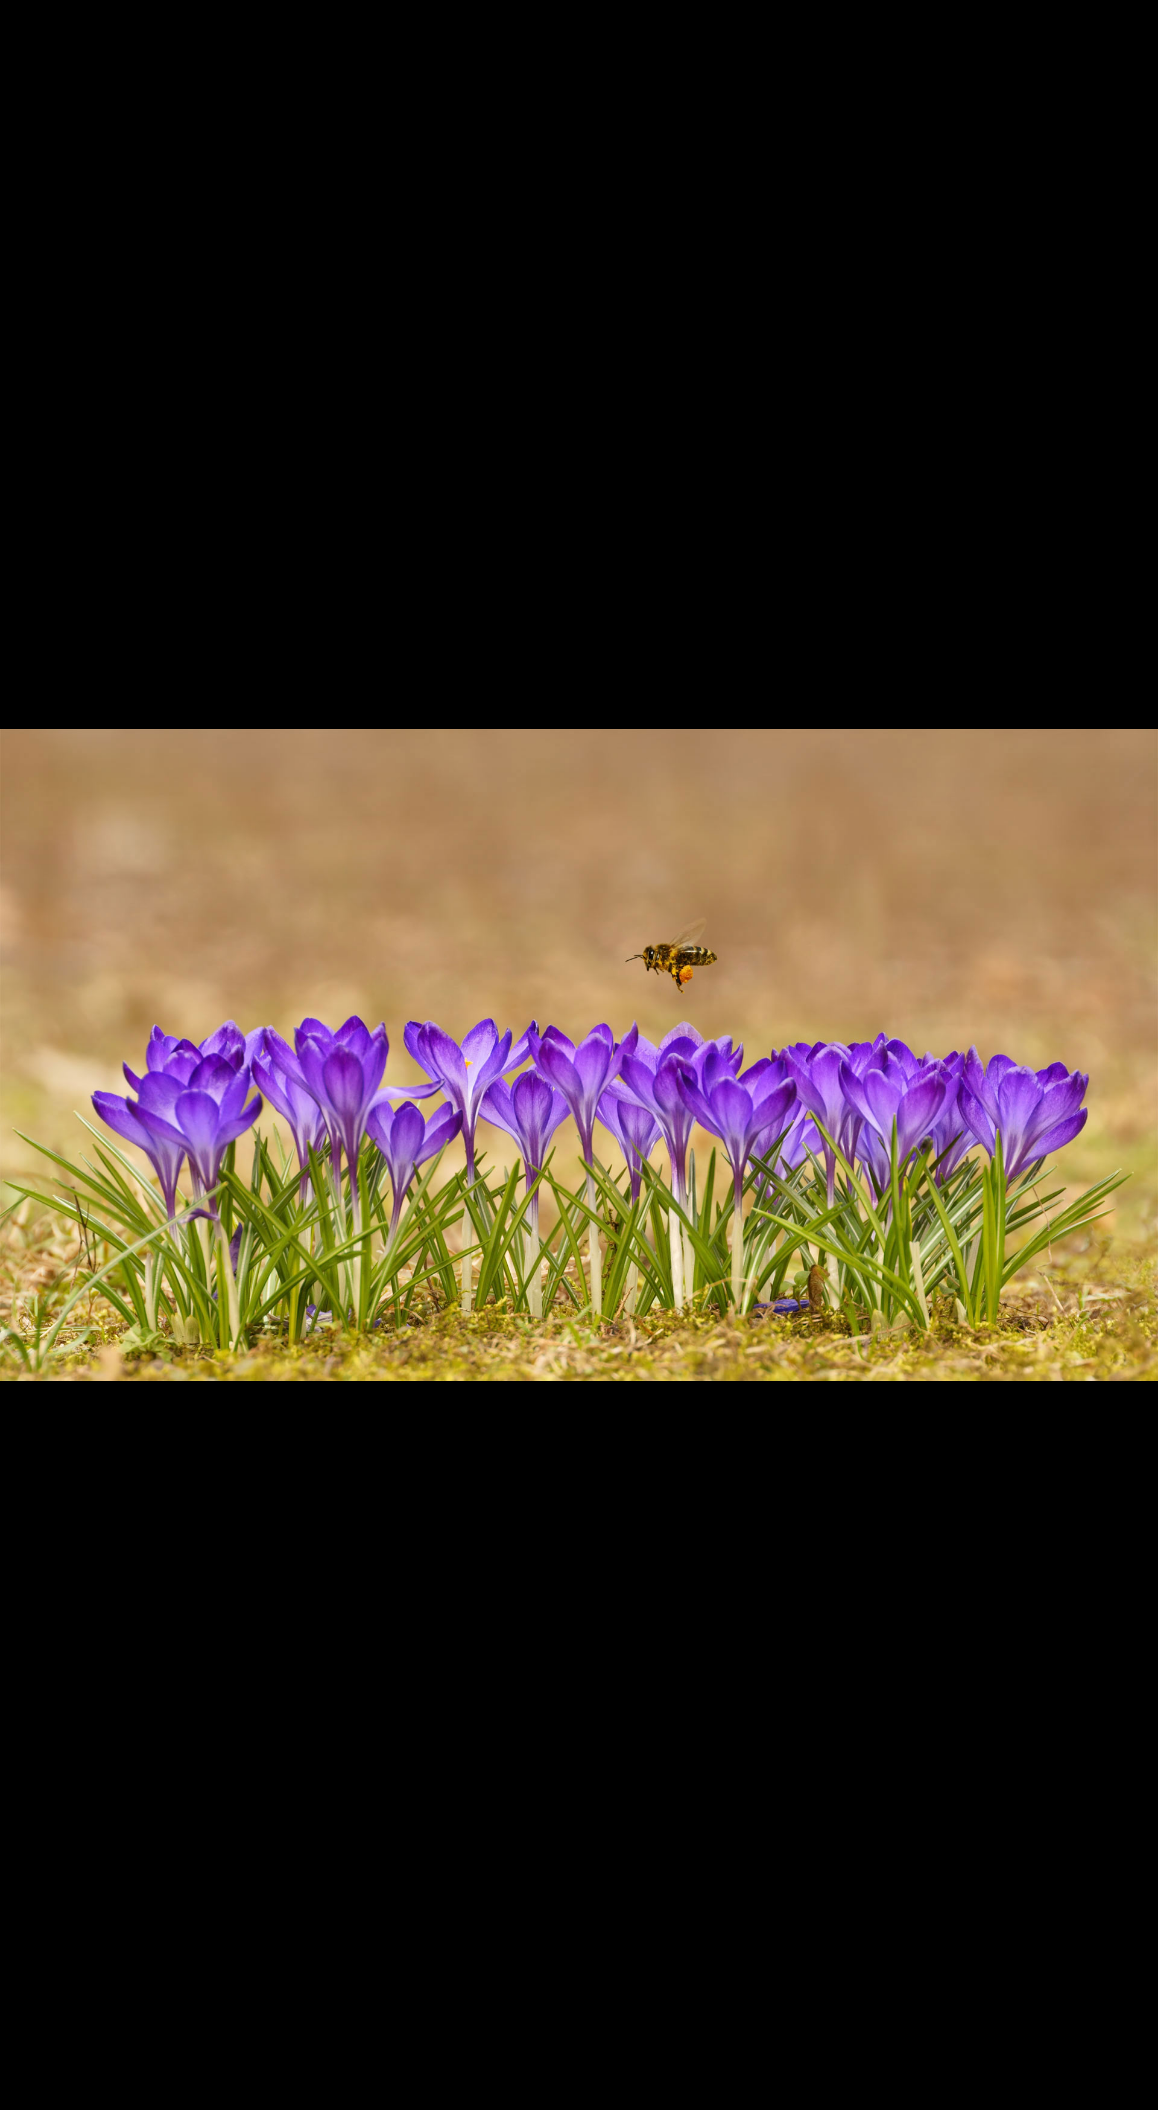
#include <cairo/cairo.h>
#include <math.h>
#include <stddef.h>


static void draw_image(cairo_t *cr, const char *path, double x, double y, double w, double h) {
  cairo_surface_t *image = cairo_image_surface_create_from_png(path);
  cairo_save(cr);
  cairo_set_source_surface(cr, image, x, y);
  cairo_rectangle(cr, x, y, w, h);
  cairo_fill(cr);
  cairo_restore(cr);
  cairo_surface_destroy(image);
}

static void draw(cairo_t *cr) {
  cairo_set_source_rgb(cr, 0, 0, 0);
  cairo_paint(cr);
  draw_image(cr, "images/1.png", 0, 729, 1158, 652);
}

int main(void) {
  cairo_surface_t *surface = cairo_image_surface_create(CAIRO_FORMAT_RGB24, 1158, 2110);
  cairo_t *cr = cairo_create(surface);
  cairo_font_options_t *options = cairo_font_options_create();
  cairo_font_options_set_hint_metrics(options, CAIRO_HINT_METRICS_OFF);
  cairo_font_options_set_hint_style(options, CAIRO_HINT_STYLE_NONE);
  cairo_set_font_options(cr, options);
  cairo_set_miter_limit(cr, 4);
  draw(cr);
  cairo_surface_write_to_png(surface, "out.png");
  cairo_font_options_destroy(options);
  cairo_destroy(cr);
  cairo_surface_destroy(surface);
  return 0;
}
